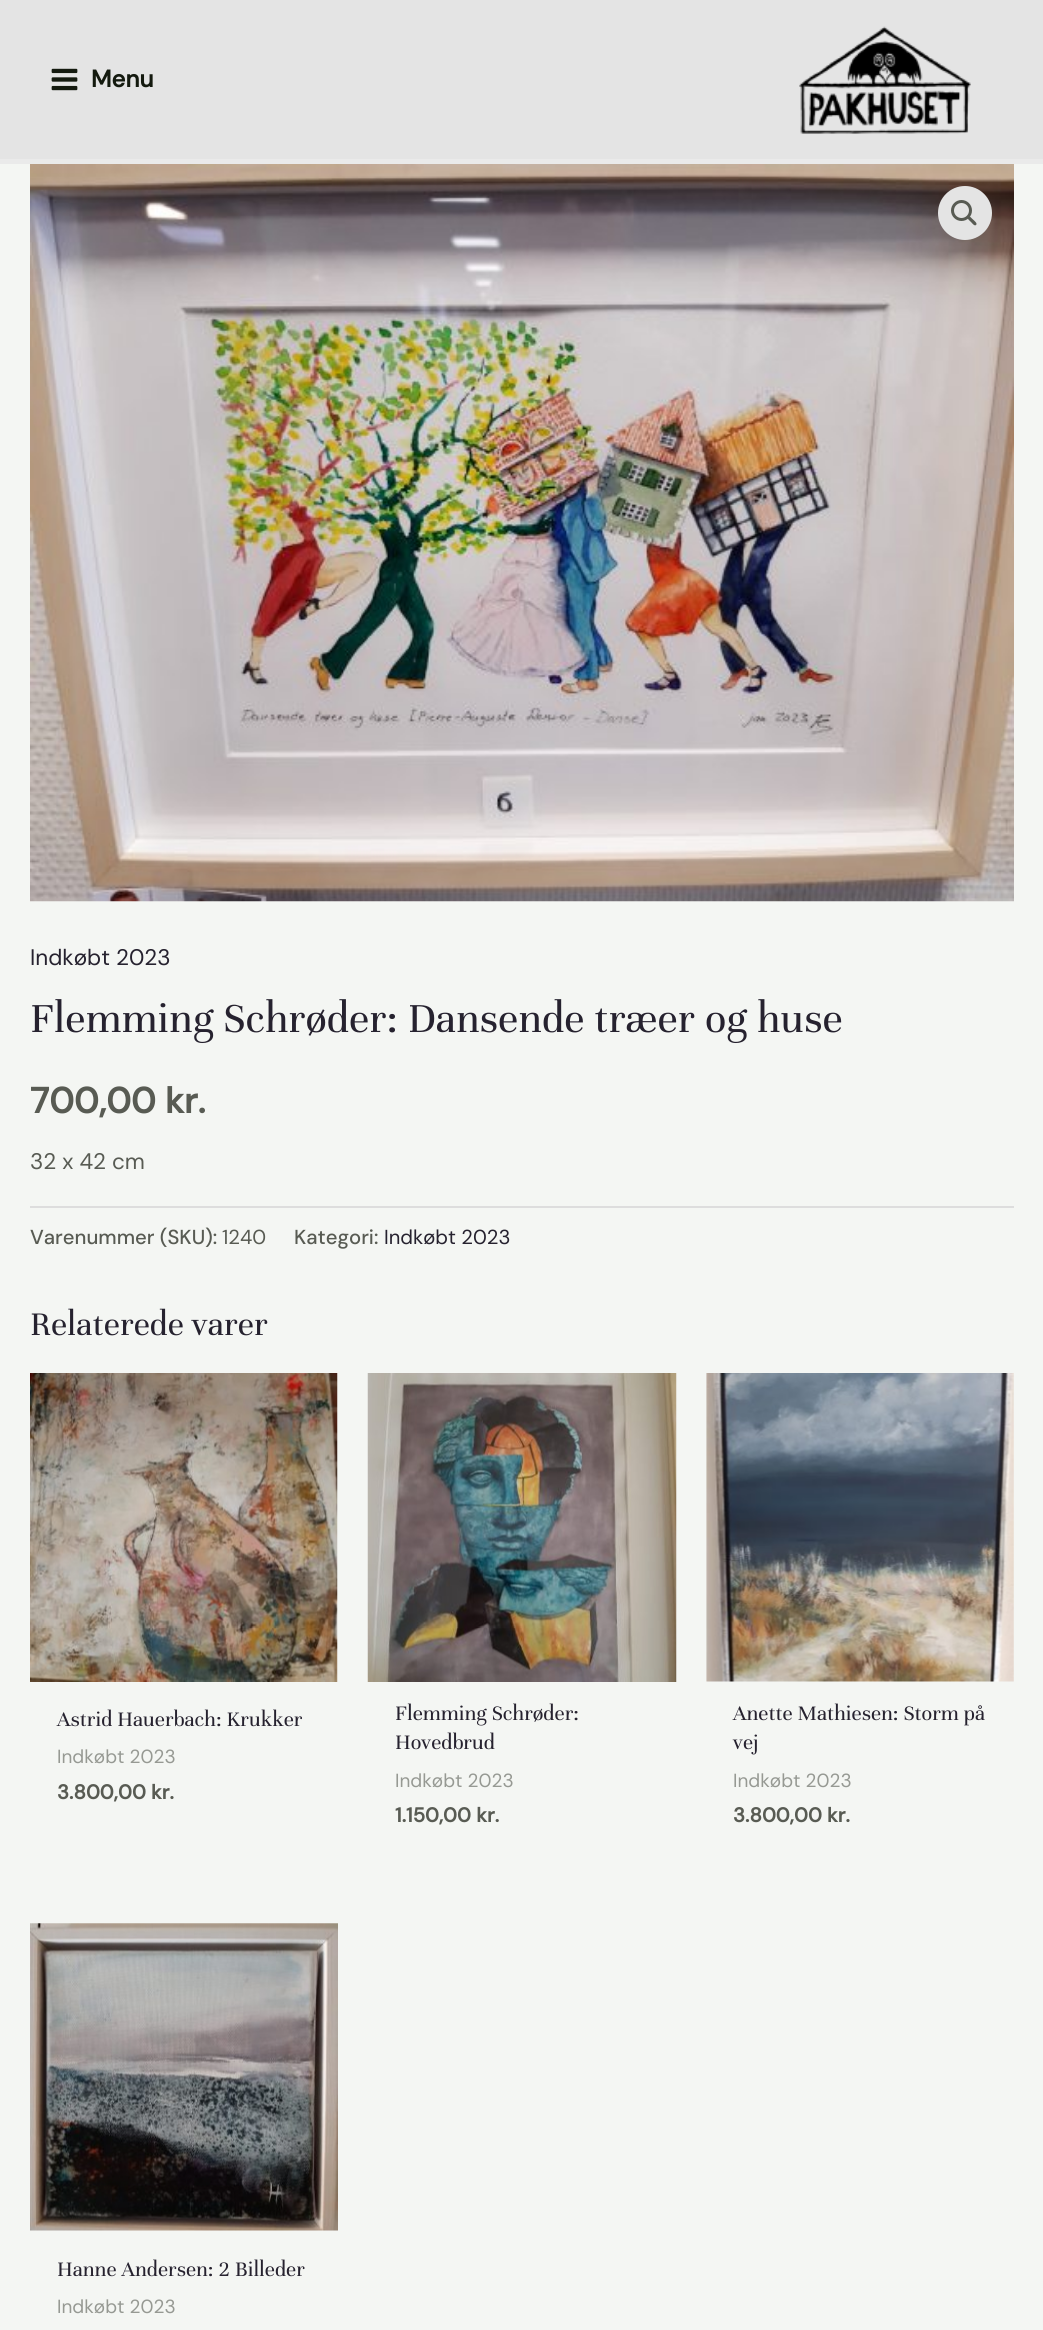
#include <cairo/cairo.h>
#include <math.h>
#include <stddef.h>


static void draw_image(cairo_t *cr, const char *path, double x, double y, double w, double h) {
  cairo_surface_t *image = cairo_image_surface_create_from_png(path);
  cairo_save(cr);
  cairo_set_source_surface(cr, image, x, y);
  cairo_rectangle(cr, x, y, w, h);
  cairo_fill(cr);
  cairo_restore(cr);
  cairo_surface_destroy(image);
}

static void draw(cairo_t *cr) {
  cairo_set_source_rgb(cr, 244 / 255.0, 246 / 255.0, 243 / 255.0);
  cairo_paint(cr);
  cairo_set_source_rgb(cr, 228 / 255.0, 228 / 255.0, 228 / 255.0);
  cairo_rectangle(cr, 0, 0, 1043, 159);
  cairo_fill(cr);
  cairo_set_source_rgb(cr, 234 / 255.0, 234 / 255.0, 234 / 255.0);
  cairo_rectangle(cr, 0, 159, 1043, 5);
  cairo_fill(cr);
  draw_image(cr, "images/1.png", 51, 68, 27, 23);
  draw_image(cr, "images/2.png", 799, 26, 172, 108);
  draw_image(cr, "images/3.png", 30, 164, 984, 738);
  cairo_set_source_rgb(cr, 228 / 255.0, 228 / 255.0, 228 / 255.0);
  cairo_arc(cr, 965, 213, 27, 0, 2 * M_PI);
  cairo_fill(cr);
  cairo_arc(cr, 961.5, 210.5, 9, 0, 2 * M_PI);
  cairo_set_source_rgb(cr, 88 / 255.0, 91 / 255.0, 83 / 255.0);
  cairo_set_line_width(cr, 3);
  cairo_stroke(cr);
  cairo_new_path(cr);
  cairo_move_to(cr, 968, 216.5);
  cairo_curve_to(cr, 969.5, 215, 972, 219, 973, 219.5);
  cairo_curve_to(cr, 974, 220.5, 978, 223.5, 976, 225);
  cairo_curve_to(cr, 974.5, 226.5, 972, 223, 971, 222);
  cairo_curve_to(cr, 970, 221, 966, 218, 968, 216.5);
  cairo_close_path(cr);
  cairo_fill(cr);
  cairo_set_source_rgb(cr, 221 / 255.0, 221 / 255.0, 221 / 255.0);
  cairo_rectangle(cr, 30, 1206, 984, 2);
  cairo_fill(cr);
  draw_image(cr, "images/4.png", 30, 1373, 308, 309);
  draw_image(cr, "images/5.png", 367, 1373, 310, 309);
  draw_image(cr, "images/6.png", 706, 1373, 308, 309);
  draw_image(cr, "images/7.png", 30, 1923, 308, 308);
  cairo_select_font_face(cr, "DM Sans", CAIRO_FONT_SLANT_NORMAL, CAIRO_FONT_WEIGHT_BOLD);
  cairo_set_font_size(cr, 24);
  cairo_set_source_rgb(cr, 20 / 255.0, 26 / 255.0, 15 / 255.0);
  cairo_move_to(cr, 91, 87);
  cairo_show_text(cr, "Menu");
  cairo_select_font_face(cr, "DM Sans", CAIRO_FONT_SLANT_NORMAL, CAIRO_FONT_WEIGHT_NORMAL);
  cairo_set_font_size(cr, 22.5);
  cairo_set_source_rgb(cr, 38 / 255.0, 34 / 255.0, 47 / 255.0);
  cairo_move_to(cr, 30, 965);
  cairo_show_text(cr, "Indkøbt 2023");
  cairo_select_font_face(cr, "Unna", CAIRO_FONT_SLANT_NORMAL, CAIRO_FONT_WEIGHT_NORMAL);
  cairo_set_font_size(cr, 45);
  cairo_move_to(cr, 30, 1032);
  cairo_show_text(cr, "Flemming Schrøder: Dansende træer og huse");
  cairo_select_font_face(cr, "DM Sans", CAIRO_FONT_SLANT_NORMAL, CAIRO_FONT_WEIGHT_BOLD);
  cairo_set_font_size(cr, 36);
  cairo_set_source_rgb(cr, 88 / 255.0, 91 / 255.0, 83 / 255.0);
  cairo_move_to(cr, 30, 1113);
  cairo_show_text(cr, "700,00 kr.");
  cairo_select_font_face(cr, "DM Sans", CAIRO_FONT_SLANT_NORMAL, CAIRO_FONT_WEIGHT_NORMAL);
  cairo_set_font_size(cr, 22.5);
  cairo_move_to(cr, 30, 1169);
  cairo_show_text(cr, "32 x 42 cm");
  cairo_select_font_face(cr, "DM Sans Medium", CAIRO_FONT_SLANT_NORMAL, CAIRO_FONT_WEIGHT_NORMAL);
  cairo_set_font_size(cr, 20.25);
  cairo_move_to(cr, 30, 1244);
  cairo_show_text(cr, "Varenummer (SKU):");
  cairo_select_font_face(cr, "DM Sans", CAIRO_FONT_SLANT_NORMAL, CAIRO_FONT_WEIGHT_NORMAL);
  cairo_move_to(cr, 222, 1244);
  cairo_show_text(cr, "1240");
  cairo_select_font_face(cr, "DM Sans Medium", CAIRO_FONT_SLANT_NORMAL, CAIRO_FONT_WEIGHT_NORMAL);
  cairo_move_to(cr, 294, 1244);
  cairo_show_text(cr, "Kategori:");
  cairo_select_font_face(cr, "DM Sans", CAIRO_FONT_SLANT_NORMAL, CAIRO_FONT_WEIGHT_NORMAL);
  cairo_set_source_rgb(cr, 38 / 255.0, 34 / 255.0, 47 / 255.0);
  cairo_move_to(cr, 384, 1244);
  cairo_show_text(cr, "Indkøbt 2023");
  cairo_select_font_face(cr, "Unna", CAIRO_FONT_SLANT_NORMAL, CAIRO_FONT_WEIGHT_NORMAL);
  cairo_set_font_size(cr, 36);
  cairo_move_to(cr, 30, 1335);
  cairo_show_text(cr, "Relaterede varer");
  cairo_set_font_size(cr, 22.5);
  cairo_move_to(cr, 57, 1726);
  cairo_show_text(cr, "Astrid Hauerbach: Krukker");
  cairo_select_font_face(cr, "DM Sans", CAIRO_FONT_SLANT_NORMAL, CAIRO_FONT_WEIGHT_NORMAL);
  cairo_set_font_size(cr, 19);
  cairo_set_source_rgb(cr, 150 / 255.0, 153 / 255.0, 147 / 255.0);
  cairo_move_to(cr, 57, 1763);
  cairo_show_text(cr, "Indkøbt 2023");
  cairo_select_font_face(cr, "DM Sans", CAIRO_FONT_SLANT_NORMAL, CAIRO_FONT_WEIGHT_BOLD);
  cairo_set_font_size(cr, 20.25);
  cairo_set_source_rgb(cr, 88 / 255.0, 91 / 255.0, 83 / 255.0);
  cairo_move_to(cr, 57, 1799);
  cairo_show_text(cr, "3.800,00 kr.");
  cairo_select_font_face(cr, "Unna", CAIRO_FONT_SLANT_NORMAL, CAIRO_FONT_WEIGHT_NORMAL);
  cairo_set_font_size(cr, 22.5);
  cairo_set_source_rgb(cr, 38 / 255.0, 34 / 255.0, 47 / 255.0);
  cairo_move_to(cr, 395, 1720);
  cairo_show_text(cr, "Flemming Schrøder:");
  cairo_move_to(cr, 395, 1749);
  cairo_show_text(cr, "Hovedbrud");
  cairo_select_font_face(cr, "DM Sans", CAIRO_FONT_SLANT_NORMAL, CAIRO_FONT_WEIGHT_NORMAL);
  cairo_set_font_size(cr, 19);
  cairo_set_source_rgb(cr, 150 / 255.0, 153 / 255.0, 147 / 255.0);
  cairo_move_to(cr, 395, 1787);
  cairo_show_text(cr, "Indkøbt 2023");
  cairo_select_font_face(cr, "DM Sans", CAIRO_FONT_SLANT_NORMAL, CAIRO_FONT_WEIGHT_BOLD);
  cairo_set_font_size(cr, 20.25);
  cairo_set_source_rgb(cr, 88 / 255.0, 91 / 255.0, 83 / 255.0);
  cairo_move_to(cr, 395, 1822);
  cairo_show_text(cr, "1.150,00 kr.");
  cairo_select_font_face(cr, "Unna", CAIRO_FONT_SLANT_NORMAL, CAIRO_FONT_WEIGHT_NORMAL);
  cairo_set_font_size(cr, 22.5);
  cairo_set_source_rgb(cr, 38 / 255.0, 34 / 255.0, 47 / 255.0);
  cairo_move_to(cr, 733, 1720);
  cairo_show_text(cr, "Anette Mathiesen: Storm på");
  cairo_move_to(cr, 733, 1749);
  cairo_show_text(cr, "vej");
  cairo_select_font_face(cr, "DM Sans", CAIRO_FONT_SLANT_NORMAL, CAIRO_FONT_WEIGHT_NORMAL);
  cairo_set_font_size(cr, 19);
  cairo_set_source_rgb(cr, 150 / 255.0, 153 / 255.0, 147 / 255.0);
  cairo_move_to(cr, 733, 1787);
  cairo_show_text(cr, "Indkøbt 2023");
  cairo_select_font_face(cr, "DM Sans", CAIRO_FONT_SLANT_NORMAL, CAIRO_FONT_WEIGHT_BOLD);
  cairo_set_font_size(cr, 20.25);
  cairo_set_source_rgb(cr, 88 / 255.0, 91 / 255.0, 83 / 255.0);
  cairo_move_to(cr, 733, 1822);
  cairo_show_text(cr, "3.800,00 kr.");
  cairo_select_font_face(cr, "Unna", CAIRO_FONT_SLANT_NORMAL, CAIRO_FONT_WEIGHT_NORMAL);
  cairo_set_font_size(cr, 22.5);
  cairo_set_source_rgb(cr, 38 / 255.0, 34 / 255.0, 47 / 255.0);
  cairo_move_to(cr, 57, 2276);
  cairo_show_text(cr, "Hanne Andersen: 2 Billeder");
  cairo_select_font_face(cr, "DM Sans", CAIRO_FONT_SLANT_NORMAL, CAIRO_FONT_WEIGHT_NORMAL);
  cairo_set_font_size(cr, 19);
  cairo_set_source_rgb(cr, 150 / 255.0, 153 / 255.0, 147 / 255.0);
  cairo_move_to(cr, 57, 2313);
  cairo_show_text(cr, "Indkøbt 2023");
}

int main(void) {
  cairo_surface_t *surface = cairo_image_surface_create(CAIRO_FORMAT_RGB24, 1043, 2330);
  cairo_t *cr = cairo_create(surface);
  cairo_font_options_t *options = cairo_font_options_create();
  cairo_font_options_set_hint_metrics(options, CAIRO_HINT_METRICS_OFF);
  cairo_font_options_set_hint_style(options, CAIRO_HINT_STYLE_NONE);
  cairo_set_font_options(cr, options);
  cairo_set_miter_limit(cr, 4);
  draw(cr);
  cairo_surface_write_to_png(surface, "out.png");
  cairo_font_options_destroy(options);
  cairo_destroy(cr);
  cairo_surface_destroy(surface);
  return 0;
}
